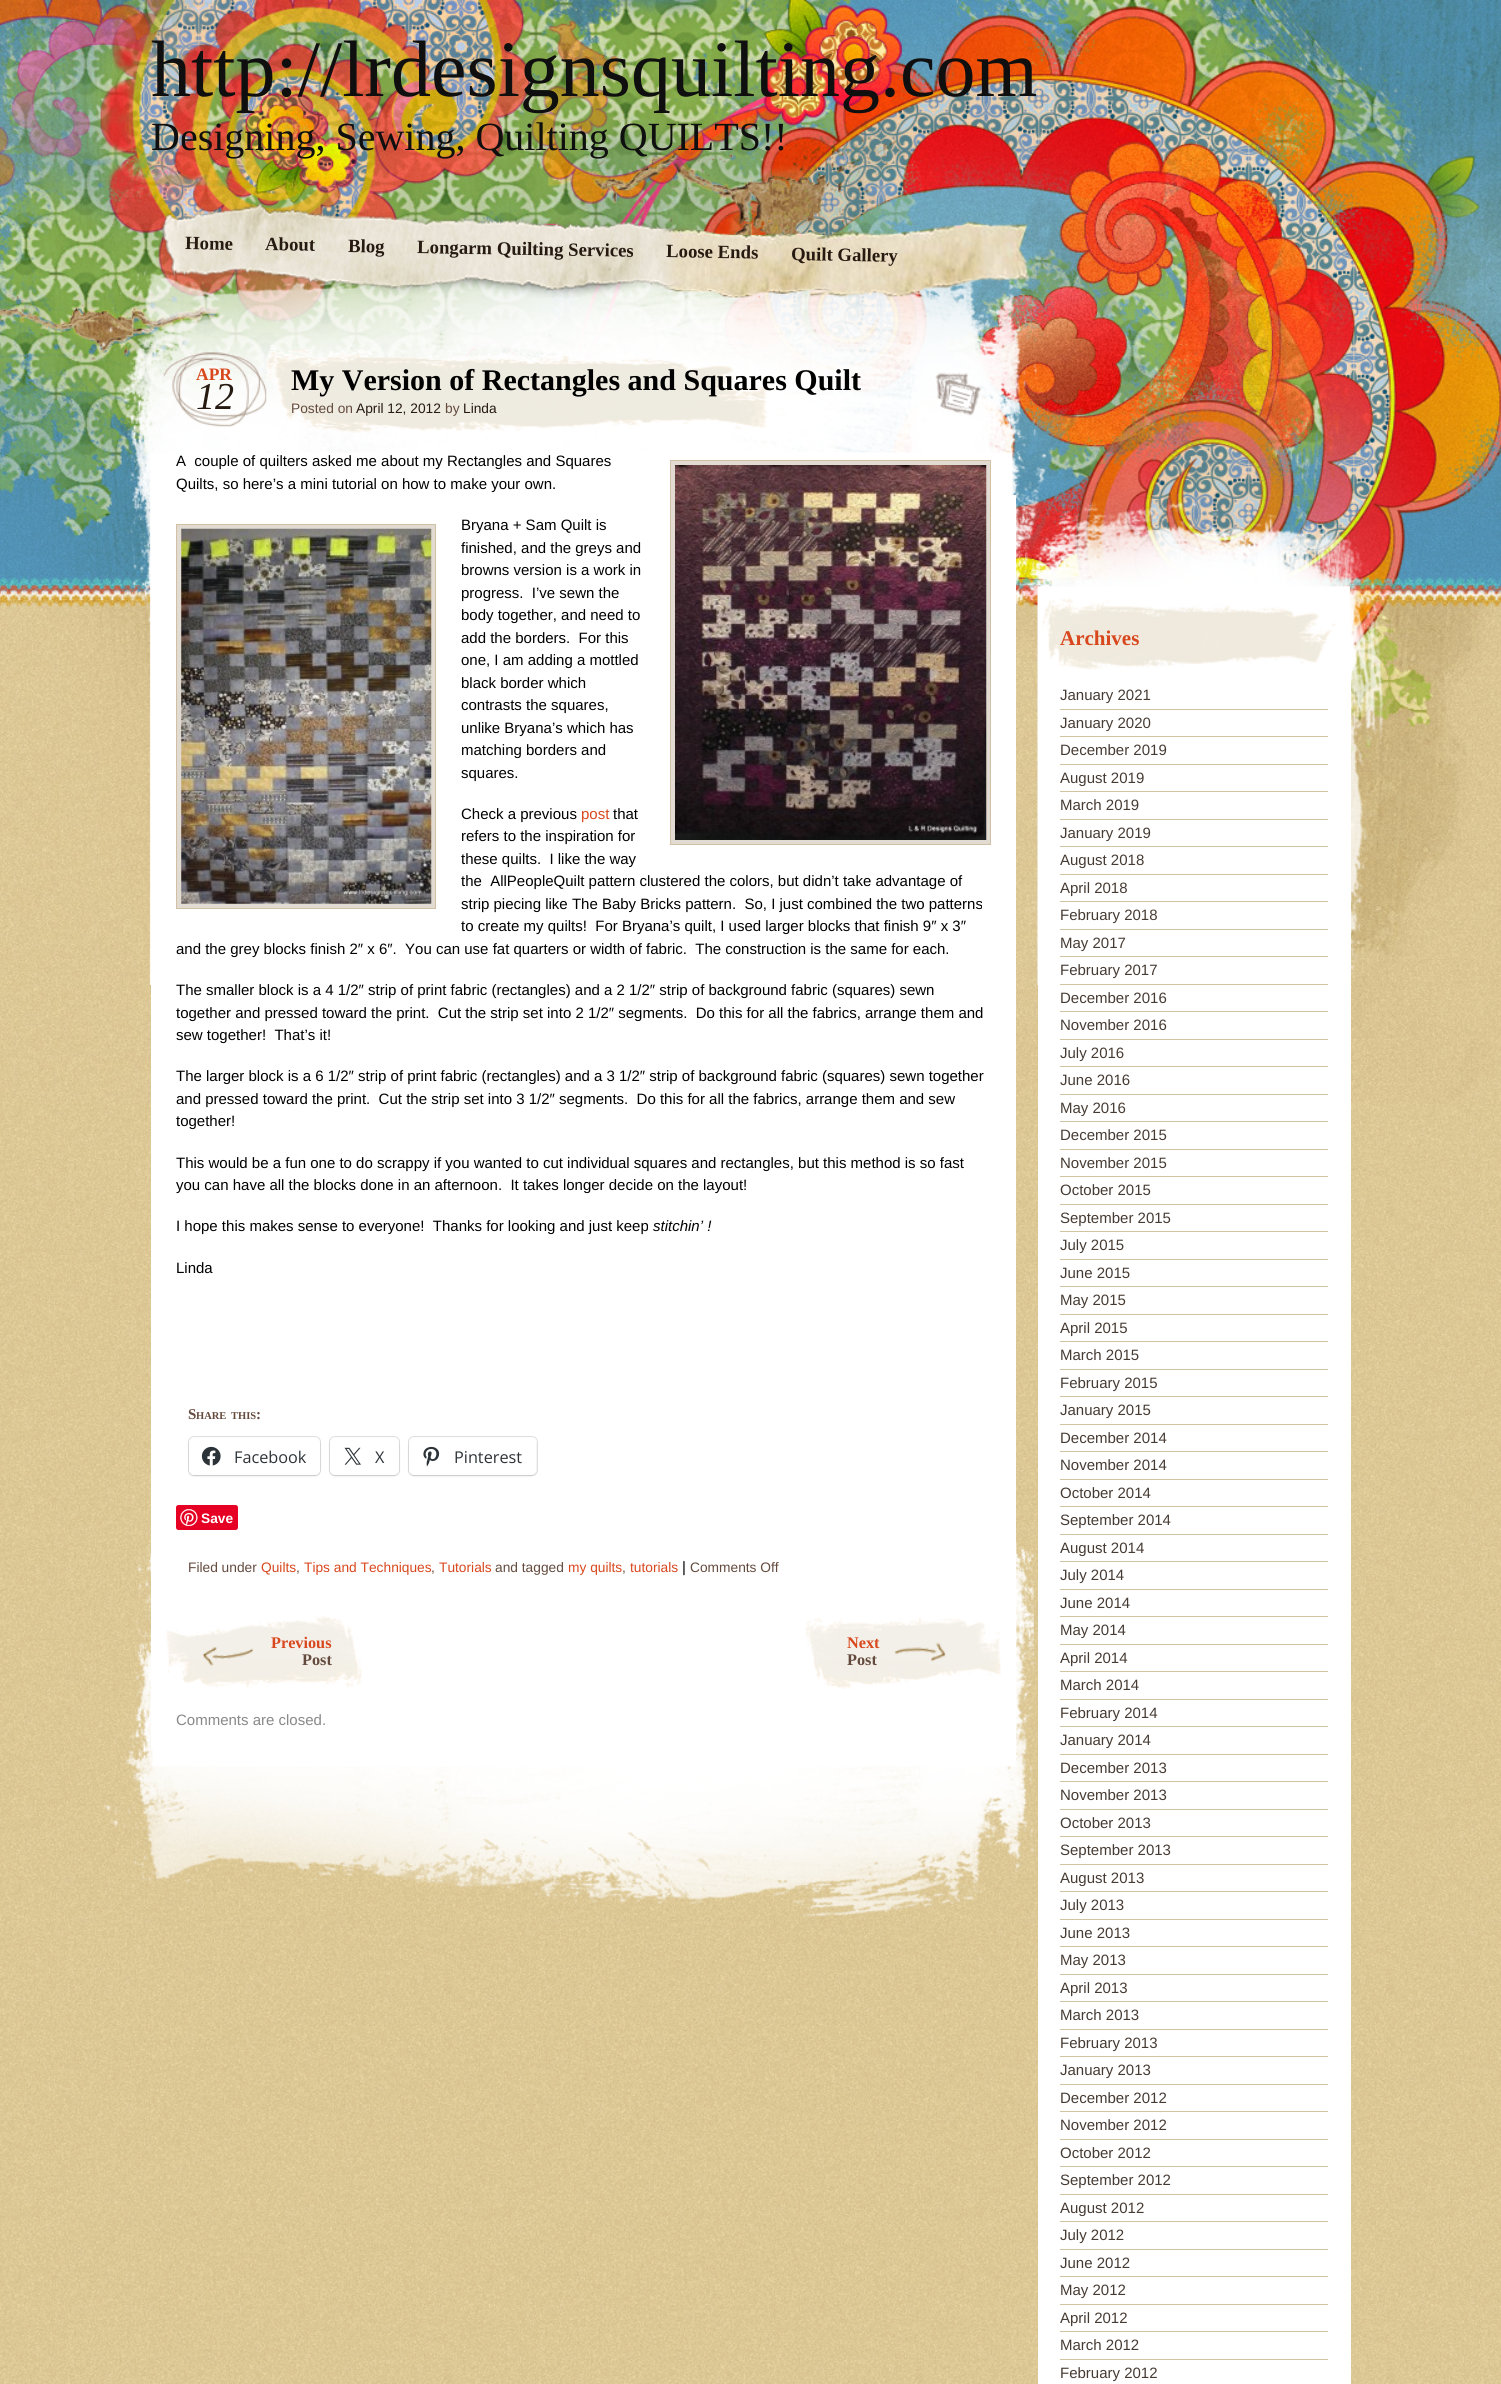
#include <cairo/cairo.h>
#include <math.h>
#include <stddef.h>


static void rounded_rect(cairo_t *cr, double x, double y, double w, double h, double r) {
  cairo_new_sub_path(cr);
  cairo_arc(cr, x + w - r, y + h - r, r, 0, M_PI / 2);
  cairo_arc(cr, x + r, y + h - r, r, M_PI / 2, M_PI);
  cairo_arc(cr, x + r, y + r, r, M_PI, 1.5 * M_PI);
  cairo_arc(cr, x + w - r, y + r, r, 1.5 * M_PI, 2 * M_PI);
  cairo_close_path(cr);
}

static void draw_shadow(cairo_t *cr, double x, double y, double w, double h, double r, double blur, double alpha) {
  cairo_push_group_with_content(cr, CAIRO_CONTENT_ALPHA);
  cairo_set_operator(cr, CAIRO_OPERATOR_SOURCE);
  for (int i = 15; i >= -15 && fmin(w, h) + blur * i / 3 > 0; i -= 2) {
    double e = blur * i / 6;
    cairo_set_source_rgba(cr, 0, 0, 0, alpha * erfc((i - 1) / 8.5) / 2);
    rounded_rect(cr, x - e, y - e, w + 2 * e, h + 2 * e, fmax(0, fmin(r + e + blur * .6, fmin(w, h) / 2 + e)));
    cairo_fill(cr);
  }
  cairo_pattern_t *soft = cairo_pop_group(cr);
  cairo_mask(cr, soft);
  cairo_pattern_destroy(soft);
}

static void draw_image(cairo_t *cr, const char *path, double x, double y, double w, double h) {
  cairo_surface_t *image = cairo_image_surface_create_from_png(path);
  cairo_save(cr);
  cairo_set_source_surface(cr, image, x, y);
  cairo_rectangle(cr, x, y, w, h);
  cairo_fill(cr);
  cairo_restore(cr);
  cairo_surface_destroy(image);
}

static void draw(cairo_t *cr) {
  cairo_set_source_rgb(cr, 1, 1, 1);
  cairo_paint(cr);
  draw_image(cr, "images/1.png", 0, 1103, 1501, 1281);
  draw_image(cr, "images/2.png", 0, 0, 1501, 1104);
  draw_image(cr, "images/4.png", 93, 236, 1291, 749);
  draw_image(cr, "images/3.png", 161, 201, 868, 97);
  draw_image(cr, "images/16.png", 103, 1542, 931, 375);
  cairo_set_source_rgb(cr, 1, 1, 1);
  cairo_rectangle(cr, 151, 495, 865, 1255);
  cairo_fill(cr);
  draw_image(cr, "images/5.png", 163, 352, 104, 75);
  draw_image(cr, "images/6.png", 266, 345, 505, 89);
  draw_image(cr, "images/7.png", 935, 372, 47, 44);
  cairo_set_source_rgb(cr, 226 / 255.0, 219 / 255.0, 209 / 255.0);
  cairo_rectangle(cr, 670.5, 460.5, 320, 384);
  cairo_fill_preserve(cr);
  cairo_set_source_rgb(cr, 209 / 255.0, 191 / 255.0, 166 / 255.0);
  cairo_set_line_width(cr, 1);
  cairo_stroke(cr);
  draw_image(cr, "images/8.png", 675, 465, 312, 375);
  cairo_set_source_rgb(cr, 226 / 255.0, 219 / 255.0, 209 / 255.0);
  cairo_rectangle(cr, 176.5, 524.5, 259, 384);
  cairo_fill_preserve(cr);
  cairo_set_source_rgb(cr, 209 / 255.0, 191 / 255.0, 166 / 255.0);
  cairo_stroke(cr);
  draw_image(cr, "images/9.png", 181, 528, 251, 376);
  rounded_rect(cr, 188.5, 1436.5, 132, 39, 5.5);
  cairo_set_source_rgb(cr, 224 / 255.0, 224 / 255.0, 224 / 255.0);
  cairo_stroke(cr);
  cairo_set_source_rgb(cr, 0, 0, 0);
  draw_shadow(cr, 189, 1439, 131, 37, 5, 1, 0.12);
  cairo_set_source_rgb(cr, 1, 1, 1);
  rounded_rect(cr, 189, 1438, 131, 37, 5);
  cairo_fill(cr);
  draw_image(cr, "images/10.png", 201, 1446, 20, 20);
  rounded_rect(cr, 329.5, 1436.5, 70, 39, 5.5);
  cairo_set_source_rgb(cr, 224 / 255.0, 224 / 255.0, 224 / 255.0);
  cairo_stroke(cr);
  cairo_set_source_rgb(cr, 0, 0, 0);
  draw_shadow(cr, 330, 1439, 69, 37, 5, 1, 0.12);
  cairo_set_source_rgb(cr, 1, 1, 1);
  rounded_rect(cr, 330, 1438, 69, 37, 5);
  cairo_fill(cr);
  draw_image(cr, "images/11.png", 344, 1447, 17, 18);
  rounded_rect(cr, 408.5, 1436.5, 129, 39, 5.5);
  cairo_set_source_rgb(cr, 224 / 255.0, 224 / 255.0, 224 / 255.0);
  cairo_stroke(cr);
  cairo_set_source_rgb(cr, 0, 0, 0);
  draw_shadow(cr, 409, 1439, 127, 37, 5, 1, 0.12);
  cairo_set_source_rgb(cr, 1, 1, 1);
  rounded_rect(cr, 409, 1438, 127, 37, 5);
  cairo_fill(cr);
  draw_image(cr, "images/12.png", 423, 1446, 17, 21);
  cairo_set_source_rgb(cr, 230 / 255.0, 0, 35 / 255.0);
  rounded_rect(cr, 176, 1505, 62, 25, 2.5);
  cairo_fill(cr);
  draw_image(cr, "images/13.png", 180, 1509, 18, 17);
  draw_image(cr, "images/14.png", 166, 1616, 196, 72);
  draw_image(cr, "images/15.png", 805, 1617, 196, 72);
  cairo_set_source_rgb(cr, 1, 1, 1);
  cairo_rectangle(cr, 1038, 634, 313, 1750);
  cairo_fill(cr);
  draw_image(cr, "images/17.png", 1042, 598, 294, 72);
  cairo_set_source_rgb(cr, 210 / 255.0, 196 / 255.0, 162 / 255.0);
  cairo_rectangle(cr, 1060, 709, 268, 1);
  cairo_fill(cr);
  cairo_rectangle(cr, 1060, 736, 268, 1);
  cairo_fill(cr);
  cairo_rectangle(cr, 1060, 764, 268, 1);
  cairo_fill(cr);
  cairo_rectangle(cr, 1060, 791, 268, 1);
  cairo_fill(cr);
  cairo_rectangle(cr, 1060, 819, 268, 1);
  cairo_fill(cr);
  cairo_rectangle(cr, 1060, 846, 268, 1);
  cairo_fill(cr);
  cairo_rectangle(cr, 1060, 874, 268, 1);
  cairo_fill(cr);
  cairo_rectangle(cr, 1060, 901, 268, 1);
  cairo_fill(cr);
  cairo_rectangle(cr, 1060, 929, 268, 1);
  cairo_fill(cr);
  cairo_rectangle(cr, 1060, 956, 268, 1);
  cairo_fill(cr);
  cairo_rectangle(cr, 1060, 984, 268, 1);
  cairo_fill(cr);
  cairo_rectangle(cr, 1060, 1011, 268, 1);
  cairo_fill(cr);
  cairo_rectangle(cr, 1060, 1039, 268, 1);
  cairo_fill(cr);
  cairo_rectangle(cr, 1060, 1066, 268, 1);
  cairo_fill(cr);
  cairo_rectangle(cr, 1060, 1094, 268, 1);
  cairo_fill(cr);
  cairo_rectangle(cr, 1060, 1121, 268, 1);
  cairo_fill(cr);
  cairo_rectangle(cr, 1060, 1149, 268, 1);
  cairo_fill(cr);
  cairo_rectangle(cr, 1060, 1176, 268, 1);
  cairo_fill(cr);
  cairo_rectangle(cr, 1060, 1204, 268, 1);
  cairo_fill(cr);
  cairo_rectangle(cr, 1060, 1231, 268, 1);
  cairo_fill(cr);
  cairo_rectangle(cr, 1060, 1259, 268, 1);
  cairo_fill(cr);
  cairo_rectangle(cr, 1060, 1286, 268, 1);
  cairo_fill(cr);
  cairo_rectangle(cr, 1060, 1314, 268, 1);
  cairo_fill(cr);
  cairo_rectangle(cr, 1060, 1341, 268, 1);
  cairo_fill(cr);
  cairo_rectangle(cr, 1060, 1369, 268, 1);
  cairo_fill(cr);
  cairo_rectangle(cr, 1060, 1396, 268, 1);
  cairo_fill(cr);
  cairo_rectangle(cr, 1060, 1424, 268, 1);
  cairo_fill(cr);
  cairo_rectangle(cr, 1060, 1451, 268, 1);
  cairo_fill(cr);
  cairo_rectangle(cr, 1060, 1479, 268, 1);
  cairo_fill(cr);
  cairo_rectangle(cr, 1060, 1506, 268, 1);
  cairo_fill(cr);
  cairo_rectangle(cr, 1060, 1534, 268, 1);
  cairo_fill(cr);
  cairo_rectangle(cr, 1060, 1561, 268, 1);
  cairo_fill(cr);
  cairo_rectangle(cr, 1060, 1589, 268, 1);
  cairo_fill(cr);
  cairo_rectangle(cr, 1060, 1616, 268, 1);
  cairo_fill(cr);
  cairo_rectangle(cr, 1060, 1644, 268, 1);
  cairo_fill(cr);
  cairo_rectangle(cr, 1060, 1671, 268, 1);
  cairo_fill(cr);
  cairo_rectangle(cr, 1060, 1699, 268, 1);
  cairo_fill(cr);
  cairo_rectangle(cr, 1060, 1726, 268, 1);
  cairo_fill(cr);
  cairo_rectangle(cr, 1060, 1754, 268, 1);
  cairo_fill(cr);
  cairo_rectangle(cr, 1060, 1781, 268, 1);
  cairo_fill(cr);
  cairo_rectangle(cr, 1060, 1809, 268, 1);
  cairo_fill(cr);
  cairo_rectangle(cr, 1060, 1836, 268, 1);
  cairo_fill(cr);
  cairo_rectangle(cr, 1060, 1864, 268, 1);
  cairo_fill(cr);
  cairo_rectangle(cr, 1060, 1891, 268, 1);
  cairo_fill(cr);
  cairo_rectangle(cr, 1060, 1919, 268, 1);
  cairo_fill(cr);
  cairo_rectangle(cr, 1060, 1946, 268, 1);
  cairo_fill(cr);
  cairo_rectangle(cr, 1060, 1974, 268, 1);
  cairo_fill(cr);
  cairo_rectangle(cr, 1060, 2001, 268, 1);
  cairo_fill(cr);
  cairo_rectangle(cr, 1060, 2029, 268, 1);
  cairo_fill(cr);
  cairo_rectangle(cr, 1060, 2056, 268, 1);
  cairo_fill(cr);
  cairo_rectangle(cr, 1060, 2084, 268, 1);
  cairo_fill(cr);
  cairo_rectangle(cr, 1060, 2111, 268, 1);
  cairo_fill(cr);
  cairo_rectangle(cr, 1060, 2139, 268, 1);
  cairo_fill(cr);
  cairo_rectangle(cr, 1060, 2166, 268, 1);
  cairo_fill(cr);
  cairo_rectangle(cr, 1060, 2194, 268, 1);
  cairo_fill(cr);
  cairo_rectangle(cr, 1060, 2221, 268, 1);
  cairo_fill(cr);
  cairo_rectangle(cr, 1060, 2249, 268, 1);
  cairo_fill(cr);
  cairo_rectangle(cr, 1060, 2276, 268, 1);
  cairo_fill(cr);
  cairo_rectangle(cr, 1060, 2304, 268, 1);
  cairo_fill(cr);
  cairo_rectangle(cr, 1060, 2331, 268, 1);
  cairo_fill(cr);
  cairo_rectangle(cr, 1060, 2359, 268, 1);
  cairo_fill(cr);
  cairo_select_font_face(cr, "Liberation Serif", CAIRO_FONT_SLANT_NORMAL, CAIRO_FONT_WEIGHT_NORMAL);
  cairo_set_font_size(cr, 80);
  cairo_set_source_rgb(cr, 16 / 255.0, 15 / 255.0, 15 / 255.0);
  cairo_move_to(cr, 151, 96);
  cairo_show_text(cr, "http://lrdesignsquilting.com");
  cairo_set_font_size(cr, 40);
  cairo_move_to(cr, 151, 150);
  cairo_show_text(cr, "Designing, Sewing, Quilting QUILTS!!");
  cairo_select_font_face(cr, "Liberation Serif", CAIRO_FONT_SLANT_NORMAL, CAIRO_FONT_WEIGHT_BOLD);
  cairo_set_font_size(cr, 18.75);
  cairo_set_source_rgb(cr, 38 / 255.0, 26 / 255.0, 17 / 255.0);
  cairo_save(cr);
  cairo_translate(cr, 185, 249);
  cairo_rotate(cr, 1 * M_PI / 180);
  cairo_move_to(cr, 0, 0);
  cairo_show_text(cr, "Home");
  cairo_restore(cr);
  cairo_save(cr);
  cairo_translate(cr, 265, 250);
  cairo_rotate(cr, 1 * M_PI / 180);
  cairo_move_to(cr, 0, 0);
  cairo_show_text(cr, "About");
  cairo_restore(cr);
  cairo_save(cr);
  cairo_translate(cr, 348, 252);
  cairo_rotate(cr, 1 * M_PI / 180);
  cairo_move_to(cr, 0, 0);
  cairo_show_text(cr, "Blog");
  cairo_restore(cr);
  cairo_save(cr);
  cairo_translate(cr, 417, 253);
  cairo_rotate(cr, 1 * M_PI / 180);
  cairo_move_to(cr, 0, 0);
  cairo_show_text(cr, "Longarm Quilting Services");
  cairo_restore(cr);
  cairo_save(cr);
  cairo_translate(cr, 666, 257);
  cairo_rotate(cr, 1 * M_PI / 180);
  cairo_move_to(cr, 0, 0);
  cairo_show_text(cr, "Loose Ends");
  cairo_restore(cr);
  cairo_save(cr);
  cairo_translate(cr, 791, 260);
  cairo_rotate(cr, 1 * M_PI / 180);
  cairo_move_to(cr, 0, 0);
  cairo_show_text(cr, "Quilt Gallery");
  cairo_restore(cr);
  cairo_set_font_size(cr, 17.5);
  cairo_set_source_rgb(cr, 216 / 255.0, 71 / 255.0, 29 / 255.0);
  cairo_move_to(cr, 196, 380);
  cairo_show_text(cr, "APR");
  cairo_select_font_face(cr, "Liberation Serif", CAIRO_FONT_SLANT_ITALIC, CAIRO_FONT_WEIGHT_NORMAL);
  cairo_set_font_size(cr, 38);
  cairo_set_source_rgb(cr, 38 / 255.0, 26 / 255.0, 17 / 255.0);
  cairo_move_to(cr, 196, 409);
  cairo_show_text(cr, "12");
  cairo_select_font_face(cr, "Liberation Serif", CAIRO_FONT_SLANT_NORMAL, CAIRO_FONT_WEIGHT_BOLD);
  cairo_set_font_size(cr, 30);
  cairo_set_source_rgb(cr, 0, 0, 0);
  cairo_move_to(cr, 291, 390);
  cairo_show_text(cr, "My Version of Rectangles and Squares Quilt");
  cairo_select_font_face(cr, "Liberation Sans", CAIRO_FONT_SLANT_NORMAL, CAIRO_FONT_WEIGHT_NORMAL);
  cairo_set_font_size(cr, 13.75);
  cairo_set_source_rgb(cr, 100 / 255.0, 74 / 255.0, 61 / 255.0);
  cairo_move_to(cr, 291, 413);
  cairo_show_text(cr, "Posted on");
  cairo_set_source_rgb(cr, 38 / 255.0, 26 / 255.0, 17 / 255.0);
  cairo_move_to(cr, 356, 413);
  cairo_show_text(cr, "April 12, 2012");
  cairo_set_source_rgb(cr, 100 / 255.0, 74 / 255.0, 61 / 255.0);
  cairo_move_to(cr, 445, 413);
  cairo_show_text(cr, "by");
  cairo_set_source_rgb(cr, 38 / 255.0, 26 / 255.0, 17 / 255.0);
  cairo_move_to(cr, 463, 413);
  cairo_show_text(cr, "Linda");
  cairo_set_font_size(cr, 15);
  cairo_set_source_rgb(cr, 0, 0, 0);
  cairo_move_to(cr, 176, 466);
  cairo_show_text(cr, "A  couple of quilters asked me about my Rectangles and Squares");
  cairo_move_to(cr, 176, 489);
  cairo_show_text(cr, "Quilts, so here’s a mini tutorial on how to make your own.");
  cairo_move_to(cr, 461, 530);
  cairo_show_text(cr, "Bryana + Sam Quilt is");
  cairo_move_to(cr, 461, 553);
  cairo_show_text(cr, "finished, and the greys and");
  cairo_move_to(cr, 461, 575);
  cairo_show_text(cr, "browns version is a work in");
  cairo_move_to(cr, 461, 598);
  cairo_show_text(cr, "progress.  I’ve sewn the");
  cairo_move_to(cr, 461, 620);
  cairo_show_text(cr, "body together, and need to");
  cairo_move_to(cr, 461, 643);
  cairo_show_text(cr, "add the borders.  For this");
  cairo_move_to(cr, 461, 665);
  cairo_show_text(cr, "one, I am adding a mottled");
  cairo_move_to(cr, 461, 688);
  cairo_show_text(cr, "black border which");
  cairo_move_to(cr, 461, 710);
  cairo_show_text(cr, "contrasts the squares,");
  cairo_move_to(cr, 461, 733);
  cairo_show_text(cr, "unlike Bryana’s which has");
  cairo_move_to(cr, 461, 755);
  cairo_show_text(cr, "matching borders and");
  cairo_move_to(cr, 461, 778);
  cairo_show_text(cr, "squares.");
  cairo_move_to(cr, 461, 819);
  cairo_show_text(cr, "Check a previous");
  cairo_set_source_rgb(cr, 216 / 255.0, 71 / 255.0, 29 / 255.0);
  cairo_move_to(cr, 581, 819);
  cairo_show_text(cr, "post");
  cairo_set_source_rgb(cr, 0, 0, 0);
  cairo_move_to(cr, 613, 819);
  cairo_show_text(cr, "that");
  cairo_move_to(cr, 461, 841);
  cairo_show_text(cr, "refers to the inspiration for");
  cairo_move_to(cr, 461, 864);
  cairo_show_text(cr, "these quilts.  I like the way");
  cairo_move_to(cr, 461, 886);
  cairo_show_text(cr, "the  AllPeopleQuilt pattern clustered the colors, but didn’t take advantage of");
  cairo_move_to(cr, 461, 909);
  cairo_show_text(cr, "strip piecing like The Baby Bricks pattern.  So, I just combined the two patterns");
  cairo_move_to(cr, 461, 931);
  cairo_show_text(cr, "to create my quilts!  For Bryana’s quilt, I used larger blocks that finish 9″ x 3″");
  cairo_move_to(cr, 176, 954);
  cairo_show_text(cr, "and the grey blocks finish 2″ x 6″.  You can use fat quarters or width of fabric.  The construction is the same for each.");
  cairo_move_to(cr, 176, 995);
  cairo_show_text(cr, "The smaller block is a 4 1/2″ strip of print fabric (rectangles) and a 2 1/2″ strip of background fabric (squares) sewn");
  cairo_move_to(cr, 176, 1018);
  cairo_show_text(cr, "together and pressed toward the print.  Cut the strip set into 2 1/2″ segments.  Do this for all the fabrics, arrange them and");
  cairo_move_to(cr, 176, 1040);
  cairo_show_text(cr, "sew together!  That’s it!");
  cairo_move_to(cr, 176, 1081);
  cairo_show_text(cr, "The larger block is a 6 1/2″ strip of print fabric (rectangles) and a 3 1/2″ strip of background fabric (squares) sewn together");
  cairo_move_to(cr, 176, 1104);
  cairo_show_text(cr, "and pressed toward the print.  Cut the strip set into 3 1/2″ segments.  Do this for all the fabrics, arrange them and sew");
  cairo_move_to(cr, 176, 1126);
  cairo_show_text(cr, "together!");
  cairo_move_to(cr, 176, 1168);
  cairo_show_text(cr, "This would be a fun one to do scrappy if you wanted to cut individual squares and rectangles, but this method is so fast");
  cairo_move_to(cr, 176, 1190);
  cairo_show_text(cr, "you can have all the blocks done in an afternoon.  It takes longer decide on the layout!");
  cairo_move_to(cr, 176, 1231);
  cairo_show_text(cr, "I hope this makes sense to everyone!  Thanks for looking and just keep");
  cairo_select_font_face(cr, "Liberation Sans", CAIRO_FONT_SLANT_ITALIC, CAIRO_FONT_WEIGHT_NORMAL);
  cairo_move_to(cr, 653, 1231);
  cairo_show_text(cr, "stitchin’ !");
  cairo_select_font_face(cr, "Liberation Sans", CAIRO_FONT_SLANT_NORMAL, CAIRO_FONT_WEIGHT_NORMAL);
  cairo_move_to(cr, 176, 1273);
  cairo_show_text(cr, "Linda");
  cairo_select_font_face(cr, "Liberation Serif", CAIRO_FONT_SLANT_NORMAL, CAIRO_FONT_WEIGHT_BOLD);
  cairo_set_source_rgb(cr, 100 / 255.0, 74 / 255.0, 61 / 255.0);
  cairo_move_to(cr, 188, 1419);
  cairo_show_text(cr, "S");
  cairo_set_font_size(cr, 10.5);
  cairo_move_to(cr, 196, 1419);
  cairo_show_text(cr, "HARE");
  cairo_move_to(cr, 231, 1419);
  cairo_show_text(cr, "THIS");
  cairo_set_font_size(cr, 15);
  cairo_move_to(cr, 256, 1419);
  cairo_show_text(cr, ":");
  cairo_select_font_face(cr, "Open Sans", CAIRO_FONT_SLANT_NORMAL, CAIRO_FONT_WEIGHT_NORMAL);
  cairo_set_font_size(cr, 16.25);
  cairo_set_source_rgb(cr, 44 / 255.0, 51 / 255.0, 56 / 255.0);
  cairo_move_to(cr, 234, 1463);
  cairo_show_text(cr, "Facebook");
  cairo_move_to(cr, 375, 1463);
  cairo_show_text(cr, "X");
  cairo_move_to(cr, 454, 1463);
  cairo_show_text(cr, "Pinterest");
  cairo_select_font_face(cr, "Liberation Sans", CAIRO_FONT_SLANT_NORMAL, CAIRO_FONT_WEIGHT_BOLD);
  cairo_set_font_size(cr, 13.75);
  cairo_set_source_rgb(cr, 1, 1, 1);
  cairo_move_to(cr, 201, 1523);
  cairo_show_text(cr, "Save");
  cairo_select_font_face(cr, "Liberation Sans", CAIRO_FONT_SLANT_NORMAL, CAIRO_FONT_WEIGHT_NORMAL);
  cairo_set_source_rgb(cr, 100 / 255.0, 74 / 255.0, 61 / 255.0);
  cairo_move_to(cr, 188, 1572);
  cairo_show_text(cr, "Filed under");
  cairo_set_source_rgb(cr, 216 / 255.0, 71 / 255.0, 29 / 255.0);
  cairo_move_to(cr, 261, 1572);
  cairo_show_text(cr, "Quilts");
  cairo_set_source_rgb(cr, 100 / 255.0, 74 / 255.0, 61 / 255.0);
  cairo_move_to(cr, 296, 1572);
  cairo_show_text(cr, ",");
  cairo_set_source_rgb(cr, 216 / 255.0, 71 / 255.0, 29 / 255.0);
  cairo_move_to(cr, 304, 1572);
  cairo_show_text(cr, "Tips and Techniques");
  cairo_set_source_rgb(cr, 100 / 255.0, 74 / 255.0, 61 / 255.0);
  cairo_move_to(cr, 431, 1572);
  cairo_show_text(cr, ",");
  cairo_set_source_rgb(cr, 216 / 255.0, 71 / 255.0, 29 / 255.0);
  cairo_move_to(cr, 439, 1572);
  cairo_show_text(cr, "Tutorials");
  cairo_set_source_rgb(cr, 100 / 255.0, 74 / 255.0, 61 / 255.0);
  cairo_move_to(cr, 495, 1572);
  cairo_show_text(cr, "and tagged");
  cairo_set_source_rgb(cr, 216 / 255.0, 71 / 255.0, 29 / 255.0);
  cairo_move_to(cr, 568, 1572);
  cairo_show_text(cr, "my quilts");
  cairo_set_source_rgb(cr, 100 / 255.0, 74 / 255.0, 61 / 255.0);
  cairo_move_to(cr, 622, 1572);
  cairo_show_text(cr, ",");
  cairo_set_source_rgb(cr, 216 / 255.0, 71 / 255.0, 29 / 255.0);
  cairo_move_to(cr, 630, 1572);
  cairo_show_text(cr, "tutorials");
  cairo_set_font_size(cr, 15);
  cairo_set_source_rgb(cr, 0, 0, 0);
  cairo_move_to(cr, 682, 1572);
  cairo_show_text(cr, "|");
  cairo_set_font_size(cr, 13.75);
  cairo_set_source_rgb(cr, 100 / 255.0, 74 / 255.0, 61 / 255.0);
  cairo_move_to(cr, 690, 1572);
  cairo_show_text(cr, "Comments Off");
  cairo_select_font_face(cr, "Liberation Serif", CAIRO_FONT_SLANT_NORMAL, CAIRO_FONT_WEIGHT_BOLD);
  cairo_set_font_size(cr, 16.25);
  cairo_set_source_rgb(cr, 216 / 255.0, 71 / 255.0, 29 / 255.0);
  cairo_move_to(cr, 271, 1648);
  cairo_show_text(cr, "Previous");
  cairo_set_source_rgb(cr, 100 / 255.0, 74 / 255.0, 61 / 255.0);
  cairo_move_to(cr, 302, 1665);
  cairo_show_text(cr, "Post");
  cairo_set_source_rgb(cr, 216 / 255.0, 71 / 255.0, 29 / 255.0);
  cairo_move_to(cr, 847, 1648);
  cairo_show_text(cr, "Next");
  cairo_set_source_rgb(cr, 100 / 255.0, 74 / 255.0, 61 / 255.0);
  cairo_move_to(cr, 847, 1665);
  cairo_show_text(cr, "Post");
  cairo_select_font_face(cr, "Liberation Sans", CAIRO_FONT_SLANT_NORMAL, CAIRO_FONT_WEIGHT_NORMAL);
  cairo_set_font_size(cr, 15);
  cairo_set_source_rgb(cr, 136 / 255.0, 136 / 255.0, 136 / 255.0);
  cairo_move_to(cr, 176, 1725);
  cairo_show_text(cr, "Comments are closed.");
  cairo_select_font_face(cr, "Liberation Serif", CAIRO_FONT_SLANT_NORMAL, CAIRO_FONT_WEIGHT_BOLD);
  cairo_set_font_size(cr, 21);
  cairo_set_source_rgb(cr, 216 / 255.0, 71 / 255.0, 29 / 255.0);
  cairo_move_to(cr, 1060, 645);
  cairo_show_text(cr, "Archives");
  cairo_select_font_face(cr, "Liberation Sans", CAIRO_FONT_SLANT_NORMAL, CAIRO_FONT_WEIGHT_NORMAL);
  cairo_set_font_size(cr, 15);
  cairo_set_source_rgb(cr, 70 / 255.0, 59 / 255.0, 51 / 255.0);
  cairo_move_to(cr, 1060, 700);
  cairo_show_text(cr, "January 2021");
  cairo_move_to(cr, 1060, 728);
  cairo_show_text(cr, "January 2020");
  cairo_move_to(cr, 1060, 755);
  cairo_show_text(cr, "December 2019");
  cairo_move_to(cr, 1060, 783);
  cairo_show_text(cr, "August 2019");
  cairo_move_to(cr, 1060, 810);
  cairo_show_text(cr, "March 2019");
  cairo_move_to(cr, 1060, 838);
  cairo_show_text(cr, "January 2019");
  cairo_move_to(cr, 1060, 865);
  cairo_show_text(cr, "August 2018");
  cairo_move_to(cr, 1060, 893);
  cairo_show_text(cr, "April 2018");
  cairo_move_to(cr, 1060, 920);
  cairo_show_text(cr, "February 2018");
  cairo_move_to(cr, 1060, 948);
  cairo_show_text(cr, "May 2017");
  cairo_move_to(cr, 1060, 975);
  cairo_show_text(cr, "February 2017");
  cairo_move_to(cr, 1060, 1003);
  cairo_show_text(cr, "December 2016");
  cairo_move_to(cr, 1060, 1030);
  cairo_show_text(cr, "November 2016");
  cairo_move_to(cr, 1060, 1058);
  cairo_show_text(cr, "July 2016");
  cairo_move_to(cr, 1060, 1085);
  cairo_show_text(cr, "June 2016");
  cairo_move_to(cr, 1060, 1113);
  cairo_show_text(cr, "May 2016");
  cairo_move_to(cr, 1060, 1140);
  cairo_show_text(cr, "December 2015");
  cairo_move_to(cr, 1060, 1168);
  cairo_show_text(cr, "November 2015");
  cairo_move_to(cr, 1060, 1195);
  cairo_show_text(cr, "October 2015");
  cairo_move_to(cr, 1060, 1223);
  cairo_show_text(cr, "September 2015");
  cairo_move_to(cr, 1060, 1250);
  cairo_show_text(cr, "July 2015");
  cairo_move_to(cr, 1060, 1278);
  cairo_show_text(cr, "June 2015");
  cairo_move_to(cr, 1060, 1305);
  cairo_show_text(cr, "May 2015");
  cairo_move_to(cr, 1060, 1333);
  cairo_show_text(cr, "April 2015");
  cairo_move_to(cr, 1060, 1360);
  cairo_show_text(cr, "March 2015");
  cairo_move_to(cr, 1060, 1388);
  cairo_show_text(cr, "February 2015");
  cairo_move_to(cr, 1060, 1415);
  cairo_show_text(cr, "January 2015");
  cairo_move_to(cr, 1060, 1443);
  cairo_show_text(cr, "December 2014");
  cairo_move_to(cr, 1060, 1470);
  cairo_show_text(cr, "November 2014");
  cairo_move_to(cr, 1060, 1498);
  cairo_show_text(cr, "October 2014");
  cairo_move_to(cr, 1060, 1525);
  cairo_show_text(cr, "September 2014");
  cairo_move_to(cr, 1060, 1553);
  cairo_show_text(cr, "August 2014");
  cairo_move_to(cr, 1060, 1580);
  cairo_show_text(cr, "July 2014");
  cairo_move_to(cr, 1060, 1608);
  cairo_show_text(cr, "June 2014");
  cairo_move_to(cr, 1060, 1635);
  cairo_show_text(cr, "May 2014");
  cairo_move_to(cr, 1060, 1663);
  cairo_show_text(cr, "April 2014");
  cairo_move_to(cr, 1060, 1690);
  cairo_show_text(cr, "March 2014");
  cairo_move_to(cr, 1060, 1718);
  cairo_show_text(cr, "February 2014");
  cairo_move_to(cr, 1060, 1745);
  cairo_show_text(cr, "January 2014");
  cairo_move_to(cr, 1060, 1773);
  cairo_show_text(cr, "December 2013");
  cairo_move_to(cr, 1060, 1800);
  cairo_show_text(cr, "November 2013");
  cairo_move_to(cr, 1060, 1828);
  cairo_show_text(cr, "October 2013");
  cairo_move_to(cr, 1060, 1855);
  cairo_show_text(cr, "September 2013");
  cairo_move_to(cr, 1060, 1883);
  cairo_show_text(cr, "August 2013");
  cairo_move_to(cr, 1060, 1910);
  cairo_show_text(cr, "July 2013");
  cairo_move_to(cr, 1060, 1938);
  cairo_show_text(cr, "June 2013");
  cairo_move_to(cr, 1060, 1965);
  cairo_show_text(cr, "May 2013");
  cairo_move_to(cr, 1060, 1993);
  cairo_show_text(cr, "April 2013");
  cairo_move_to(cr, 1060, 2020);
  cairo_show_text(cr, "March 2013");
  cairo_move_to(cr, 1060, 2048);
  cairo_show_text(cr, "February 2013");
  cairo_move_to(cr, 1060, 2075);
  cairo_show_text(cr, "January 2013");
  cairo_move_to(cr, 1060, 2103);
  cairo_show_text(cr, "December 2012");
  cairo_move_to(cr, 1060, 2130);
  cairo_show_text(cr, "November 2012");
  cairo_move_to(cr, 1060, 2158);
  cairo_show_text(cr, "October 2012");
  cairo_move_to(cr, 1060, 2185);
  cairo_show_text(cr, "September 2012");
  cairo_move_to(cr, 1060, 2213);
  cairo_show_text(cr, "August 2012");
  cairo_move_to(cr, 1060, 2240);
  cairo_show_text(cr, "July 2012");
  cairo_move_to(cr, 1060, 2268);
  cairo_show_text(cr, "June 2012");
  cairo_move_to(cr, 1060, 2295);
  cairo_show_text(cr, "May 2012");
  cairo_move_to(cr, 1060, 2323);
  cairo_show_text(cr, "April 2012");
  cairo_move_to(cr, 1060, 2350);
  cairo_show_text(cr, "March 2012");
  cairo_move_to(cr, 1060, 2378);
  cairo_show_text(cr, "February 2012");
}

int main(void) {
  cairo_surface_t *surface = cairo_image_surface_create(CAIRO_FORMAT_RGB24, 1501, 2384);
  cairo_t *cr = cairo_create(surface);
  cairo_font_options_t *options = cairo_font_options_create();
  cairo_font_options_set_hint_metrics(options, CAIRO_HINT_METRICS_OFF);
  cairo_font_options_set_hint_style(options, CAIRO_HINT_STYLE_NONE);
  cairo_set_font_options(cr, options);
  cairo_set_miter_limit(cr, 4);
  draw(cr);
  cairo_surface_write_to_png(surface, "out.png");
  cairo_font_options_destroy(options);
  cairo_destroy(cr);
  cairo_surface_destroy(surface);
  return 0;
}
